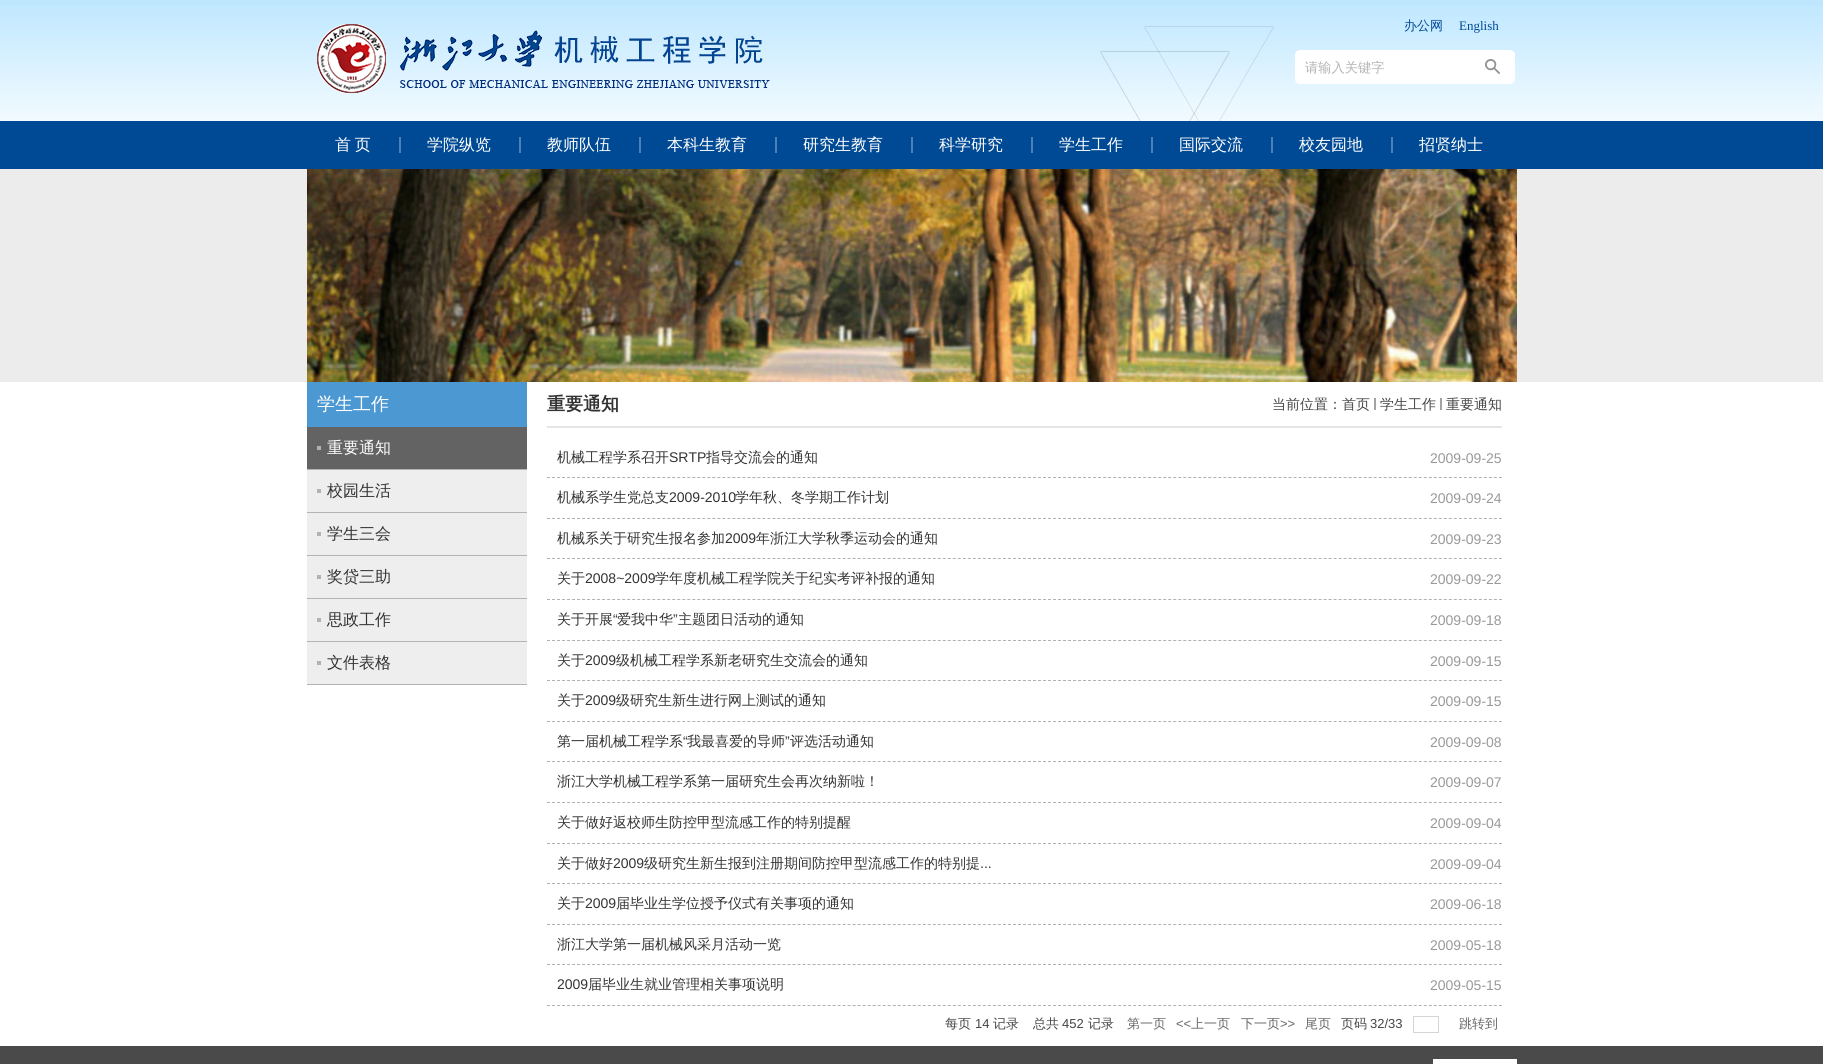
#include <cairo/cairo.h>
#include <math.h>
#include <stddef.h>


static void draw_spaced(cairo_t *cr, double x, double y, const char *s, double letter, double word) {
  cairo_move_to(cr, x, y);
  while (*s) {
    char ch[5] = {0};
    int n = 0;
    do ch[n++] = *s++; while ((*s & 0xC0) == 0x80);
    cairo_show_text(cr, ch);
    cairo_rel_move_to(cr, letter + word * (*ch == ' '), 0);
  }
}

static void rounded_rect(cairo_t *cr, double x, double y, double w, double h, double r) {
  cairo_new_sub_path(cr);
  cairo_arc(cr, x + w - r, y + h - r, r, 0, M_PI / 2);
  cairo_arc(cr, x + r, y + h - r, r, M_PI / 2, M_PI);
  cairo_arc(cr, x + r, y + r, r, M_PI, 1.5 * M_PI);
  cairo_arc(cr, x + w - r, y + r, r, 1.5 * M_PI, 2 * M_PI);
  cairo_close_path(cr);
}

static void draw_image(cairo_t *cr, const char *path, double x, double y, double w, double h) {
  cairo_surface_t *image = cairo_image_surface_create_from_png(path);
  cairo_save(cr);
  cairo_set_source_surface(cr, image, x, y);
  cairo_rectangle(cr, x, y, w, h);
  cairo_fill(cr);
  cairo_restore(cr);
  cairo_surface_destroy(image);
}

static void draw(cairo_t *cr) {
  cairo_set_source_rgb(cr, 1, 1, 1);
  cairo_paint(cr);
  draw_image(cr, "images/1.png", 0, 0, 1823, 121);
  draw_image(cr, "images/2.png", 1100, 26, 174, 95);
  draw_image(cr, "images/3.png", 317, 24, 453, 69);
  cairo_set_source_rgb(cr, 1, 1, 1);
  rounded_rect(cr, 1295, 50, 220, 34, 5);
  cairo_fill(cr);
  draw_image(cr, "images/4.png", 1485, 59, 15, 15);
  cairo_set_source_rgb(cr, 0, 74 / 255.0, 149 / 255.0);
  cairo_rectangle(cr, 0, 121, 1823, 48);
  cairo_fill(cr);
  cairo_set_source_rgb(cr, 77 / 255.0, 129 / 255.0, 181 / 255.0);
  cairo_rectangle(cr, 399, 137, 2, 16);
  cairo_fill(cr);
  cairo_rectangle(cr, 519, 137, 2, 16);
  cairo_fill(cr);
  cairo_rectangle(cr, 639, 137, 2, 16);
  cairo_fill(cr);
  cairo_rectangle(cr, 775, 137, 2, 16);
  cairo_fill(cr);
  cairo_rectangle(cr, 911, 137, 2, 16);
  cairo_fill(cr);
  cairo_rectangle(cr, 1031, 137, 2, 16);
  cairo_fill(cr);
  cairo_rectangle(cr, 1151, 137, 2, 16);
  cairo_fill(cr);
  cairo_rectangle(cr, 1271, 137, 2, 16);
  cairo_fill(cr);
  cairo_rectangle(cr, 1391, 137, 2, 16);
  cairo_fill(cr);
  cairo_set_source_rgb(cr, 236 / 255.0, 236 / 255.0, 236 / 255.0);
  cairo_rectangle(cr, 0, 169, 1823, 213);
  cairo_fill(cr);
  draw_image(cr, "images/5.png", 307, 169, 1210, 213);
  cairo_set_source_rgb(cr, 76 / 255.0, 152 / 255.0, 210 / 255.0);
  cairo_rectangle(cr, 307, 382, 220, 45);
  cairo_fill(cr);
  cairo_set_source_rgb(cr, 99 / 255.0, 99 / 255.0, 99 / 255.0);
  cairo_rectangle(cr, 307, 427, 220, 42);
  cairo_fill(cr);
  cairo_set_source_rgb(cr, 178 / 255.0, 178 / 255.0, 178 / 255.0);
  cairo_rectangle(cr, 317, 446, 4, 4);
  cairo_fill(cr);
  cairo_set_source_rgb(cr, 179 / 255.0, 179 / 255.0, 179 / 255.0);
  cairo_rectangle(cr, 307, 469, 220, 1);
  cairo_fill(cr);
  cairo_set_source_rgb(cr, 238 / 255.0, 238 / 255.0, 238 / 255.0);
  cairo_rectangle(cr, 307, 470, 220, 42);
  cairo_fill(cr);
  cairo_set_source_rgb(cr, 178 / 255.0, 178 / 255.0, 178 / 255.0);
  cairo_rectangle(cr, 317, 489, 4, 4);
  cairo_fill(cr);
  cairo_set_source_rgb(cr, 179 / 255.0, 179 / 255.0, 179 / 255.0);
  cairo_rectangle(cr, 307, 512, 220, 1);
  cairo_fill(cr);
  cairo_set_source_rgb(cr, 238 / 255.0, 238 / 255.0, 238 / 255.0);
  cairo_rectangle(cr, 307, 513, 220, 42);
  cairo_fill(cr);
  cairo_set_source_rgb(cr, 178 / 255.0, 178 / 255.0, 178 / 255.0);
  cairo_rectangle(cr, 317, 532, 4, 4);
  cairo_fill(cr);
  cairo_set_source_rgb(cr, 179 / 255.0, 179 / 255.0, 179 / 255.0);
  cairo_rectangle(cr, 307, 555, 220, 1);
  cairo_fill(cr);
  cairo_set_source_rgb(cr, 238 / 255.0, 238 / 255.0, 238 / 255.0);
  cairo_rectangle(cr, 307, 556, 220, 42);
  cairo_fill(cr);
  cairo_set_source_rgb(cr, 178 / 255.0, 178 / 255.0, 178 / 255.0);
  cairo_rectangle(cr, 317, 575, 4, 4);
  cairo_fill(cr);
  cairo_set_source_rgb(cr, 179 / 255.0, 179 / 255.0, 179 / 255.0);
  cairo_rectangle(cr, 307, 598, 220, 1);
  cairo_fill(cr);
  cairo_set_source_rgb(cr, 238 / 255.0, 238 / 255.0, 238 / 255.0);
  cairo_rectangle(cr, 307, 599, 220, 42);
  cairo_fill(cr);
  cairo_set_source_rgb(cr, 178 / 255.0, 178 / 255.0, 178 / 255.0);
  cairo_rectangle(cr, 317, 618, 4, 4);
  cairo_fill(cr);
  cairo_set_source_rgb(cr, 179 / 255.0, 179 / 255.0, 179 / 255.0);
  cairo_rectangle(cr, 307, 641, 220, 1);
  cairo_fill(cr);
  cairo_set_source_rgb(cr, 238 / 255.0, 238 / 255.0, 238 / 255.0);
  cairo_rectangle(cr, 307, 642, 220, 42);
  cairo_fill(cr);
  cairo_set_source_rgb(cr, 178 / 255.0, 178 / 255.0, 178 / 255.0);
  cairo_rectangle(cr, 317, 661, 4, 4);
  cairo_fill(cr);
  cairo_set_source_rgb(cr, 179 / 255.0, 179 / 255.0, 179 / 255.0);
  cairo_rectangle(cr, 307, 684, 220, 1);
  cairo_fill(cr);
  cairo_set_source_rgb(cr, 229 / 255.0, 229 / 255.0, 229 / 255.0);
  cairo_rectangle(cr, 547, 426, 955, 2);
  cairo_fill(cr);
  cairo_set_source_rgb(cr, 162 / 255.0, 162 / 255.0, 162 / 255.0);
  cairo_rectangle(cr, 1374, 398, 2, 12);
  cairo_fill(cr);
  cairo_rectangle(cr, 1440, 398, 2, 12);
  cairo_fill(cr);
  cairo_new_path(cr);
  cairo_move_to(cr, 547, 477.5);
  cairo_line_to(cr, 1502, 477.5);
  cairo_set_source_rgb(cr, 177 / 255.0, 177 / 255.0, 177 / 255.0);
  cairo_set_line_width(cr, 1);
  cairo_set_dash(cr, (double[]){3, 2.01}, 2, 0);
  cairo_stroke(cr);
  cairo_new_path(cr);
  cairo_move_to(cr, 547, 518.5);
  cairo_line_to(cr, 1502, 518.5);
  cairo_stroke(cr);
  cairo_new_path(cr);
  cairo_move_to(cr, 547, 558.5);
  cairo_line_to(cr, 1502, 558.5);
  cairo_stroke(cr);
  cairo_new_path(cr);
  cairo_move_to(cr, 547, 599.5);
  cairo_line_to(cr, 1502, 599.5);
  cairo_stroke(cr);
  cairo_new_path(cr);
  cairo_move_to(cr, 547, 640.5);
  cairo_line_to(cr, 1502, 640.5);
  cairo_stroke(cr);
  cairo_new_path(cr);
  cairo_move_to(cr, 547, 680.5);
  cairo_line_to(cr, 1502, 680.5);
  cairo_stroke(cr);
  cairo_new_path(cr);
  cairo_move_to(cr, 547, 721.5);
  cairo_line_to(cr, 1502, 721.5);
  cairo_stroke(cr);
  cairo_new_path(cr);
  cairo_move_to(cr, 547, 761.5);
  cairo_line_to(cr, 1502, 761.5);
  cairo_stroke(cr);
  cairo_new_path(cr);
  cairo_move_to(cr, 547, 802.5);
  cairo_line_to(cr, 1502, 802.5);
  cairo_stroke(cr);
  cairo_new_path(cr);
  cairo_move_to(cr, 547, 843.5);
  cairo_line_to(cr, 1502, 843.5);
  cairo_stroke(cr);
  cairo_new_path(cr);
  cairo_move_to(cr, 547, 883.5);
  cairo_line_to(cr, 1502, 883.5);
  cairo_stroke(cr);
  cairo_new_path(cr);
  cairo_move_to(cr, 547, 924.5);
  cairo_line_to(cr, 1502, 924.5);
  cairo_stroke(cr);
  cairo_new_path(cr);
  cairo_move_to(cr, 547, 964.5);
  cairo_line_to(cr, 1502, 964.5);
  cairo_stroke(cr);
  cairo_new_path(cr);
  cairo_move_to(cr, 547, 1005.5);
  cairo_line_to(cr, 1502, 1005.5);
  cairo_stroke(cr);
  cairo_rectangle(cr, 1413.5, 1016.5, 25, 16);
  cairo_set_source_rgb(cr, 213 / 255.0, 213 / 255.0, 213 / 255.0);
  cairo_set_dash(cr, NULL, 0, 0);
  cairo_stroke(cr);
  cairo_set_source_rgb(cr, 74 / 255.0, 74 / 255.0, 74 / 255.0);
  cairo_rectangle(cr, 0, 1046, 1823, 18);
  cairo_fill(cr);
  cairo_set_source_rgb(cr, 1, 1, 1);
  cairo_rectangle(cr, 1433, 1059, 84, 5);
  cairo_fill(cr);
  cairo_select_font_face(cr, "WenQuanYi Zen Hei Medium", CAIRO_FONT_SLANT_NORMAL, CAIRO_FONT_WEIGHT_NORMAL);
  cairo_set_font_size(cr, 13.25);
  cairo_set_source_rgb(cr, 179 / 255.0, 179 / 255.0, 179 / 255.0);
  cairo_move_to(cr, 1305, 72);
  cairo_show_text(cr, "请输入关键字");
  cairo_set_font_size(cr, 13);
  cairo_set_source_rgb(cr, 0, 74 / 255.0, 149 / 255.0);
  cairo_move_to(cr, 1404, 30);
  cairo_show_text(cr, "办公网");
  cairo_select_font_face(cr, "Liberation Serif", CAIRO_FONT_SLANT_NORMAL, CAIRO_FONT_WEIGHT_NORMAL);
  cairo_move_to(cr, 1459, 30);
  cairo_show_text(cr, "English");
  cairo_select_font_face(cr, "WenQuanYi Zen Hei Medium", CAIRO_FONT_SLANT_NORMAL, CAIRO_FONT_WEIGHT_NORMAL);
  cairo_set_font_size(cr, 16);
  cairo_set_source_rgb(cr, 1, 1, 1);
  draw_spaced(cr, 335, 150, "首 页", 0, -1);
  cairo_move_to(cr, 427, 150);
  cairo_show_text(cr, "学院纵览");
  cairo_move_to(cr, 547, 150);
  cairo_show_text(cr, "教师队伍");
  cairo_move_to(cr, 667, 150);
  cairo_show_text(cr, "本科生教育");
  cairo_move_to(cr, 803, 150);
  cairo_show_text(cr, "研究生教育");
  cairo_move_to(cr, 939, 150);
  cairo_show_text(cr, "科学研究");
  cairo_move_to(cr, 1059, 150);
  cairo_show_text(cr, "学生工作");
  cairo_move_to(cr, 1179, 150);
  cairo_show_text(cr, "国际交流");
  cairo_move_to(cr, 1299, 150);
  cairo_show_text(cr, "校友园地");
  cairo_move_to(cr, 1419, 150);
  cairo_show_text(cr, "招贤纳士");
  cairo_set_font_size(cr, 18);
  cairo_move_to(cr, 317, 410);
  cairo_show_text(cr, "学生工作");
  cairo_set_font_size(cr, 16);
  cairo_move_to(cr, 327, 453);
  cairo_show_text(cr, "重要通知");
  cairo_set_source_rgb(cr, 51 / 255.0, 51 / 255.0, 51 / 255.0);
  cairo_move_to(cr, 327, 496);
  cairo_show_text(cr, "校园生活");
  cairo_move_to(cr, 327, 539);
  cairo_show_text(cr, "学生三会");
  cairo_move_to(cr, 327, 582);
  cairo_show_text(cr, "奖贷三助");
  cairo_move_to(cr, 327, 625);
  cairo_show_text(cr, "思政工作");
  cairo_move_to(cr, 327, 668);
  cairo_show_text(cr, "文件表格");
  cairo_select_font_face(cr, "WenQuanYi Zen Hei", CAIRO_FONT_SLANT_NORMAL, CAIRO_FONT_WEIGHT_BOLD);
  cairo_set_font_size(cr, 18);
  cairo_move_to(cr, 547, 410);
  cairo_show_text(cr, "重要通知");
  cairo_select_font_face(cr, "WenQuanYi Zen Hei Medium", CAIRO_FONT_SLANT_NORMAL, CAIRO_FONT_WEIGHT_NORMAL);
  cairo_set_font_size(cr, 14);
  cairo_set_source_rgb(cr, 69 / 255.0, 69 / 255.0, 69 / 255.0);
  cairo_move_to(cr, 1272, 409);
  cairo_show_text(cr, "当前位置：首页");
  cairo_move_to(cr, 1380, 409);
  cairo_show_text(cr, "学生工作");
  cairo_move_to(cr, 1446, 409);
  cairo_show_text(cr, "重要通知");
  cairo_set_source_rgb(cr, 51 / 255.0, 51 / 255.0, 51 / 255.0);
  cairo_move_to(cr, 557, 462);
  cairo_show_text(cr, "机械工程学系召开");
  cairo_select_font_face(cr, "Liberation Sans", CAIRO_FONT_SLANT_NORMAL, CAIRO_FONT_WEIGHT_NORMAL);
  cairo_move_to(cr, 669, 462);
  cairo_show_text(cr, "SRTP");
  cairo_select_font_face(cr, "WenQuanYi Zen Hei Medium", CAIRO_FONT_SLANT_NORMAL, CAIRO_FONT_WEIGHT_NORMAL);
  cairo_move_to(cr, 706, 462);
  cairo_show_text(cr, "指导交流会的通知");
  cairo_select_font_face(cr, "Liberation Sans", CAIRO_FONT_SLANT_NORMAL, CAIRO_FONT_WEIGHT_NORMAL);
  cairo_set_source_rgb(cr, 153 / 255.0, 153 / 255.0, 153 / 255.0);
  cairo_move_to(cr, 1430, 463);
  cairo_show_text(cr, "2009-09-25");
  cairo_select_font_face(cr, "WenQuanYi Zen Hei Medium", CAIRO_FONT_SLANT_NORMAL, CAIRO_FONT_WEIGHT_NORMAL);
  cairo_set_source_rgb(cr, 51 / 255.0, 51 / 255.0, 51 / 255.0);
  cairo_move_to(cr, 557, 502);
  cairo_show_text(cr, "机械系学生党总支");
  cairo_select_font_face(cr, "Liberation Sans", CAIRO_FONT_SLANT_NORMAL, CAIRO_FONT_WEIGHT_NORMAL);
  cairo_move_to(cr, 669, 502);
  cairo_show_text(cr, "2009-2010");
  cairo_select_font_face(cr, "WenQuanYi Zen Hei Medium", CAIRO_FONT_SLANT_NORMAL, CAIRO_FONT_WEIGHT_NORMAL);
  cairo_move_to(cr, 735, 502);
  cairo_show_text(cr, "学年秋、冬学期工作计划");
  cairo_select_font_face(cr, "Liberation Sans", CAIRO_FONT_SLANT_NORMAL, CAIRO_FONT_WEIGHT_NORMAL);
  cairo_set_source_rgb(cr, 153 / 255.0, 153 / 255.0, 153 / 255.0);
  cairo_move_to(cr, 1430, 503);
  cairo_show_text(cr, "2009-09-24");
  cairo_select_font_face(cr, "WenQuanYi Zen Hei Medium", CAIRO_FONT_SLANT_NORMAL, CAIRO_FONT_WEIGHT_NORMAL);
  cairo_set_source_rgb(cr, 51 / 255.0, 51 / 255.0, 51 / 255.0);
  cairo_move_to(cr, 557, 543);
  cairo_show_text(cr, "机械系关于研究生报名参加");
  cairo_select_font_face(cr, "Liberation Sans", CAIRO_FONT_SLANT_NORMAL, CAIRO_FONT_WEIGHT_NORMAL);
  cairo_move_to(cr, 725, 543);
  cairo_show_text(cr, "2009");
  cairo_select_font_face(cr, "WenQuanYi Zen Hei Medium", CAIRO_FONT_SLANT_NORMAL, CAIRO_FONT_WEIGHT_NORMAL);
  cairo_move_to(cr, 756, 543);
  cairo_show_text(cr, "年浙江大学秋季运动会的通知");
  cairo_select_font_face(cr, "Liberation Sans", CAIRO_FONT_SLANT_NORMAL, CAIRO_FONT_WEIGHT_NORMAL);
  cairo_set_source_rgb(cr, 153 / 255.0, 153 / 255.0, 153 / 255.0);
  cairo_move_to(cr, 1430, 544);
  cairo_show_text(cr, "2009-09-23");
  cairo_select_font_face(cr, "WenQuanYi Zen Hei Medium", CAIRO_FONT_SLANT_NORMAL, CAIRO_FONT_WEIGHT_NORMAL);
  cairo_set_source_rgb(cr, 51 / 255.0, 51 / 255.0, 51 / 255.0);
  cairo_move_to(cr, 557, 583);
  cairo_show_text(cr, "关于");
  cairo_select_font_face(cr, "Liberation Sans", CAIRO_FONT_SLANT_NORMAL, CAIRO_FONT_WEIGHT_NORMAL);
  cairo_move_to(cr, 585, 583);
  cairo_show_text(cr, "2008~2009");
  cairo_select_font_face(cr, "WenQuanYi Zen Hei Medium", CAIRO_FONT_SLANT_NORMAL, CAIRO_FONT_WEIGHT_NORMAL);
  cairo_move_to(cr, 655, 583);
  cairo_show_text(cr, "学年度机械工程学院关于纪实考评补报的通知");
  cairo_select_font_face(cr, "Liberation Sans", CAIRO_FONT_SLANT_NORMAL, CAIRO_FONT_WEIGHT_NORMAL);
  cairo_set_source_rgb(cr, 153 / 255.0, 153 / 255.0, 153 / 255.0);
  cairo_move_to(cr, 1430, 584);
  cairo_show_text(cr, "2009-09-22");
  cairo_select_font_face(cr, "WenQuanYi Zen Hei Medium", CAIRO_FONT_SLANT_NORMAL, CAIRO_FONT_WEIGHT_NORMAL);
  cairo_set_source_rgb(cr, 51 / 255.0, 51 / 255.0, 51 / 255.0);
  cairo_move_to(cr, 557, 624);
  cairo_show_text(cr, "关于开展");
  cairo_select_font_face(cr, "Liberation Sans", CAIRO_FONT_SLANT_NORMAL, CAIRO_FONT_WEIGHT_NORMAL);
  cairo_move_to(cr, 613, 624);
  cairo_show_text(cr, "“");
  cairo_select_font_face(cr, "WenQuanYi Zen Hei Medium", CAIRO_FONT_SLANT_NORMAL, CAIRO_FONT_WEIGHT_NORMAL);
  cairo_move_to(cr, 617, 624);
  cairo_show_text(cr, "爱我中华");
  cairo_select_font_face(cr, "Liberation Sans", CAIRO_FONT_SLANT_NORMAL, CAIRO_FONT_WEIGHT_NORMAL);
  cairo_move_to(cr, 673, 624);
  cairo_show_text(cr, "”");
  cairo_select_font_face(cr, "WenQuanYi Zen Hei Medium", CAIRO_FONT_SLANT_NORMAL, CAIRO_FONT_WEIGHT_NORMAL);
  cairo_move_to(cr, 678, 624);
  cairo_show_text(cr, "主题团日活动的通知");
  cairo_select_font_face(cr, "Liberation Sans", CAIRO_FONT_SLANT_NORMAL, CAIRO_FONT_WEIGHT_NORMAL);
  cairo_set_source_rgb(cr, 153 / 255.0, 153 / 255.0, 153 / 255.0);
  cairo_move_to(cr, 1430, 625);
  cairo_show_text(cr, "2009-09-18");
  cairo_select_font_face(cr, "WenQuanYi Zen Hei Medium", CAIRO_FONT_SLANT_NORMAL, CAIRO_FONT_WEIGHT_NORMAL);
  cairo_set_source_rgb(cr, 51 / 255.0, 51 / 255.0, 51 / 255.0);
  cairo_move_to(cr, 557, 665);
  cairo_show_text(cr, "关于");
  cairo_select_font_face(cr, "Liberation Sans", CAIRO_FONT_SLANT_NORMAL, CAIRO_FONT_WEIGHT_NORMAL);
  cairo_move_to(cr, 585, 665);
  cairo_show_text(cr, "2009");
  cairo_select_font_face(cr, "WenQuanYi Zen Hei Medium", CAIRO_FONT_SLANT_NORMAL, CAIRO_FONT_WEIGHT_NORMAL);
  cairo_move_to(cr, 616, 665);
  cairo_show_text(cr, "级机械工程学系新老研究生交流会的通知");
  cairo_select_font_face(cr, "Liberation Sans", CAIRO_FONT_SLANT_NORMAL, CAIRO_FONT_WEIGHT_NORMAL);
  cairo_set_source_rgb(cr, 153 / 255.0, 153 / 255.0, 153 / 255.0);
  cairo_move_to(cr, 1430, 666);
  cairo_show_text(cr, "2009-09-15");
  cairo_select_font_face(cr, "WenQuanYi Zen Hei Medium", CAIRO_FONT_SLANT_NORMAL, CAIRO_FONT_WEIGHT_NORMAL);
  cairo_set_source_rgb(cr, 51 / 255.0, 51 / 255.0, 51 / 255.0);
  cairo_move_to(cr, 557, 705);
  cairo_show_text(cr, "关于");
  cairo_select_font_face(cr, "Liberation Sans", CAIRO_FONT_SLANT_NORMAL, CAIRO_FONT_WEIGHT_NORMAL);
  cairo_move_to(cr, 585, 705);
  cairo_show_text(cr, "2009");
  cairo_select_font_face(cr, "WenQuanYi Zen Hei Medium", CAIRO_FONT_SLANT_NORMAL, CAIRO_FONT_WEIGHT_NORMAL);
  cairo_move_to(cr, 616, 705);
  cairo_show_text(cr, "级研究生新生进行网上测试的通知");
  cairo_select_font_face(cr, "Liberation Sans", CAIRO_FONT_SLANT_NORMAL, CAIRO_FONT_WEIGHT_NORMAL);
  cairo_set_source_rgb(cr, 153 / 255.0, 153 / 255.0, 153 / 255.0);
  cairo_move_to(cr, 1430, 706);
  cairo_show_text(cr, "2009-09-15");
  cairo_select_font_face(cr, "WenQuanYi Zen Hei Medium", CAIRO_FONT_SLANT_NORMAL, CAIRO_FONT_WEIGHT_NORMAL);
  cairo_set_source_rgb(cr, 51 / 255.0, 51 / 255.0, 51 / 255.0);
  cairo_move_to(cr, 557, 746);
  cairo_show_text(cr, "第一届机械工程学系");
  cairo_select_font_face(cr, "Liberation Sans", CAIRO_FONT_SLANT_NORMAL, CAIRO_FONT_WEIGHT_NORMAL);
  cairo_move_to(cr, 683, 746);
  cairo_show_text(cr, "“");
  cairo_select_font_face(cr, "WenQuanYi Zen Hei Medium", CAIRO_FONT_SLANT_NORMAL, CAIRO_FONT_WEIGHT_NORMAL);
  cairo_move_to(cr, 687, 746);
  cairo_show_text(cr, "我最喜爱的导师");
  cairo_select_font_face(cr, "Liberation Sans", CAIRO_FONT_SLANT_NORMAL, CAIRO_FONT_WEIGHT_NORMAL);
  cairo_move_to(cr, 785, 746);
  cairo_show_text(cr, "”");
  cairo_select_font_face(cr, "WenQuanYi Zen Hei Medium", CAIRO_FONT_SLANT_NORMAL, CAIRO_FONT_WEIGHT_NORMAL);
  cairo_move_to(cr, 790, 746);
  cairo_show_text(cr, "评选活动通知");
  cairo_select_font_face(cr, "Liberation Sans", CAIRO_FONT_SLANT_NORMAL, CAIRO_FONT_WEIGHT_NORMAL);
  cairo_set_source_rgb(cr, 153 / 255.0, 153 / 255.0, 153 / 255.0);
  cairo_move_to(cr, 1430, 747);
  cairo_show_text(cr, "2009-09-08");
  cairo_select_font_face(cr, "WenQuanYi Zen Hei Medium", CAIRO_FONT_SLANT_NORMAL, CAIRO_FONT_WEIGHT_NORMAL);
  cairo_set_source_rgb(cr, 51 / 255.0, 51 / 255.0, 51 / 255.0);
  cairo_move_to(cr, 557, 786);
  cairo_show_text(cr, "浙江大学机械工程学系第一届研究生会再次纳新啦！");
  cairo_select_font_face(cr, "Liberation Sans", CAIRO_FONT_SLANT_NORMAL, CAIRO_FONT_WEIGHT_NORMAL);
  cairo_set_source_rgb(cr, 153 / 255.0, 153 / 255.0, 153 / 255.0);
  cairo_move_to(cr, 1430, 787);
  cairo_show_text(cr, "2009-09-07");
  cairo_select_font_face(cr, "WenQuanYi Zen Hei Medium", CAIRO_FONT_SLANT_NORMAL, CAIRO_FONT_WEIGHT_NORMAL);
  cairo_set_source_rgb(cr, 51 / 255.0, 51 / 255.0, 51 / 255.0);
  cairo_move_to(cr, 557, 827);
  cairo_show_text(cr, "关于做好返校师生防控甲型流感工作的特别提醒");
  cairo_select_font_face(cr, "Liberation Sans", CAIRO_FONT_SLANT_NORMAL, CAIRO_FONT_WEIGHT_NORMAL);
  cairo_set_source_rgb(cr, 153 / 255.0, 153 / 255.0, 153 / 255.0);
  cairo_move_to(cr, 1430, 828);
  cairo_show_text(cr, "2009-09-04");
  cairo_select_font_face(cr, "WenQuanYi Zen Hei Medium", CAIRO_FONT_SLANT_NORMAL, CAIRO_FONT_WEIGHT_NORMAL);
  cairo_set_source_rgb(cr, 51 / 255.0, 51 / 255.0, 51 / 255.0);
  cairo_move_to(cr, 557, 868);
  cairo_show_text(cr, "关于做好");
  cairo_select_font_face(cr, "Liberation Sans", CAIRO_FONT_SLANT_NORMAL, CAIRO_FONT_WEIGHT_NORMAL);
  cairo_move_to(cr, 613, 868);
  cairo_show_text(cr, "2009");
  cairo_select_font_face(cr, "WenQuanYi Zen Hei Medium", CAIRO_FONT_SLANT_NORMAL, CAIRO_FONT_WEIGHT_NORMAL);
  cairo_move_to(cr, 644, 868);
  cairo_show_text(cr, "级研究生新生报到注册期间防控甲型流感工作的特别提");
  cairo_select_font_face(cr, "Liberation Sans", CAIRO_FONT_SLANT_NORMAL, CAIRO_FONT_WEIGHT_NORMAL);
  cairo_move_to(cr, 980, 868);
  cairo_show_text(cr, "...");
  cairo_set_source_rgb(cr, 153 / 255.0, 153 / 255.0, 153 / 255.0);
  cairo_move_to(cr, 1430, 869);
  cairo_show_text(cr, "2009-09-04");
  cairo_select_font_face(cr, "WenQuanYi Zen Hei Medium", CAIRO_FONT_SLANT_NORMAL, CAIRO_FONT_WEIGHT_NORMAL);
  cairo_set_source_rgb(cr, 51 / 255.0, 51 / 255.0, 51 / 255.0);
  cairo_move_to(cr, 557, 908);
  cairo_show_text(cr, "关于");
  cairo_select_font_face(cr, "Liberation Sans", CAIRO_FONT_SLANT_NORMAL, CAIRO_FONT_WEIGHT_NORMAL);
  cairo_move_to(cr, 585, 908);
  cairo_show_text(cr, "2009");
  cairo_select_font_face(cr, "WenQuanYi Zen Hei Medium", CAIRO_FONT_SLANT_NORMAL, CAIRO_FONT_WEIGHT_NORMAL);
  cairo_move_to(cr, 616, 908);
  cairo_show_text(cr, "届毕业生学位授予仪式有关事项的通知");
  cairo_select_font_face(cr, "Liberation Sans", CAIRO_FONT_SLANT_NORMAL, CAIRO_FONT_WEIGHT_NORMAL);
  cairo_set_source_rgb(cr, 153 / 255.0, 153 / 255.0, 153 / 255.0);
  cairo_move_to(cr, 1430, 909);
  cairo_show_text(cr, "2009-06-18");
  cairo_select_font_face(cr, "WenQuanYi Zen Hei Medium", CAIRO_FONT_SLANT_NORMAL, CAIRO_FONT_WEIGHT_NORMAL);
  cairo_set_source_rgb(cr, 51 / 255.0, 51 / 255.0, 51 / 255.0);
  cairo_move_to(cr, 557, 949);
  cairo_show_text(cr, "浙江大学第一届机械风采月活动一览");
  cairo_select_font_face(cr, "Liberation Sans", CAIRO_FONT_SLANT_NORMAL, CAIRO_FONT_WEIGHT_NORMAL);
  cairo_set_source_rgb(cr, 153 / 255.0, 153 / 255.0, 153 / 255.0);
  cairo_move_to(cr, 1430, 950);
  cairo_show_text(cr, "2009-05-18");
  cairo_set_source_rgb(cr, 51 / 255.0, 51 / 255.0, 51 / 255.0);
  cairo_move_to(cr, 557, 989);
  cairo_show_text(cr, "2009");
  cairo_select_font_face(cr, "WenQuanYi Zen Hei Medium", CAIRO_FONT_SLANT_NORMAL, CAIRO_FONT_WEIGHT_NORMAL);
  cairo_move_to(cr, 588, 989);
  cairo_show_text(cr, "届毕业生就业管理相关事项说明");
  cairo_select_font_face(cr, "Liberation Sans", CAIRO_FONT_SLANT_NORMAL, CAIRO_FONT_WEIGHT_NORMAL);
  cairo_set_source_rgb(cr, 153 / 255.0, 153 / 255.0, 153 / 255.0);
  cairo_move_to(cr, 1430, 990);
  cairo_show_text(cr, "2009-05-15");
  cairo_select_font_face(cr, "WenQuanYi Zen Hei Medium", CAIRO_FONT_SLANT_NORMAL, CAIRO_FONT_WEIGHT_NORMAL);
  cairo_set_font_size(cr, 13);
  cairo_set_source_rgb(cr, 69 / 255.0, 69 / 255.0, 69 / 255.0);
  cairo_move_to(cr, 945, 1028);
  cairo_show_text(cr, "每页");
  cairo_select_font_face(cr, "Liberation Sans", CAIRO_FONT_SLANT_NORMAL, CAIRO_FONT_WEIGHT_NORMAL);
  cairo_move_to(cr, 975, 1028);
  cairo_show_text(cr, "14");
  cairo_select_font_face(cr, "WenQuanYi Zen Hei Medium", CAIRO_FONT_SLANT_NORMAL, CAIRO_FONT_WEIGHT_NORMAL);
  cairo_move_to(cr, 993, 1028);
  cairo_show_text(cr, "记录");
  cairo_move_to(cr, 1033, 1028);
  cairo_show_text(cr, "总共");
  cairo_select_font_face(cr, "Liberation Sans", CAIRO_FONT_SLANT_NORMAL, CAIRO_FONT_WEIGHT_NORMAL);
  cairo_move_to(cr, 1062, 1028);
  cairo_show_text(cr, "452");
  cairo_select_font_face(cr, "WenQuanYi Zen Hei Medium", CAIRO_FONT_SLANT_NORMAL, CAIRO_FONT_WEIGHT_NORMAL);
  cairo_move_to(cr, 1088, 1028);
  cairo_show_text(cr, "记录");
  cairo_set_source_rgb(cr, 102 / 255.0, 102 / 255.0, 102 / 255.0);
  cairo_move_to(cr, 1127, 1028);
  cairo_show_text(cr, "第一页");
  cairo_select_font_face(cr, "Liberation Sans", CAIRO_FONT_SLANT_NORMAL, CAIRO_FONT_WEIGHT_NORMAL);
  cairo_move_to(cr, 1176, 1028);
  cairo_show_text(cr, "<<");
  cairo_select_font_face(cr, "WenQuanYi Zen Hei Medium", CAIRO_FONT_SLANT_NORMAL, CAIRO_FONT_WEIGHT_NORMAL);
  cairo_move_to(cr, 1191, 1028);
  cairo_show_text(cr, "上一页");
  cairo_move_to(cr, 1241, 1028);
  cairo_show_text(cr, "下一页");
  cairo_select_font_face(cr, "Liberation Sans", CAIRO_FONT_SLANT_NORMAL, CAIRO_FONT_WEIGHT_NORMAL);
  cairo_move_to(cr, 1280, 1028);
  cairo_show_text(cr, ">>");
  cairo_select_font_face(cr, "WenQuanYi Zen Hei Medium", CAIRO_FONT_SLANT_NORMAL, CAIRO_FONT_WEIGHT_NORMAL);
  cairo_move_to(cr, 1305, 1028);
  cairo_show_text(cr, "尾页");
  cairo_set_source_rgb(cr, 69 / 255.0, 69 / 255.0, 69 / 255.0);
  cairo_move_to(cr, 1341, 1028);
  cairo_show_text(cr, "页码");
  cairo_select_font_face(cr, "Liberation Sans", CAIRO_FONT_SLANT_NORMAL, CAIRO_FONT_WEIGHT_NORMAL);
  cairo_move_to(cr, 1370, 1028);
  cairo_show_text(cr, "32/33");
  cairo_select_font_face(cr, "WenQuanYi Zen Hei Medium", CAIRO_FONT_SLANT_NORMAL, CAIRO_FONT_WEIGHT_NORMAL);
  cairo_set_source_rgb(cr, 102 / 255.0, 102 / 255.0, 102 / 255.0);
  cairo_move_to(cr, 1459, 1028);
  cairo_show_text(cr, "跳转到");
}

int main(void) {
  cairo_surface_t *surface = cairo_image_surface_create(CAIRO_FORMAT_RGB24, 1823, 1064);
  cairo_t *cr = cairo_create(surface);
  cairo_font_options_t *options = cairo_font_options_create();
  cairo_font_options_set_hint_metrics(options, CAIRO_HINT_METRICS_OFF);
  cairo_font_options_set_hint_style(options, CAIRO_HINT_STYLE_NONE);
  cairo_set_font_options(cr, options);
  cairo_set_miter_limit(cr, 4);
  draw(cr);
  cairo_surface_write_to_png(surface, "out.png");
  cairo_font_options_destroy(options);
  cairo_destroy(cr);
  cairo_surface_destroy(surface);
  return 0;
}
